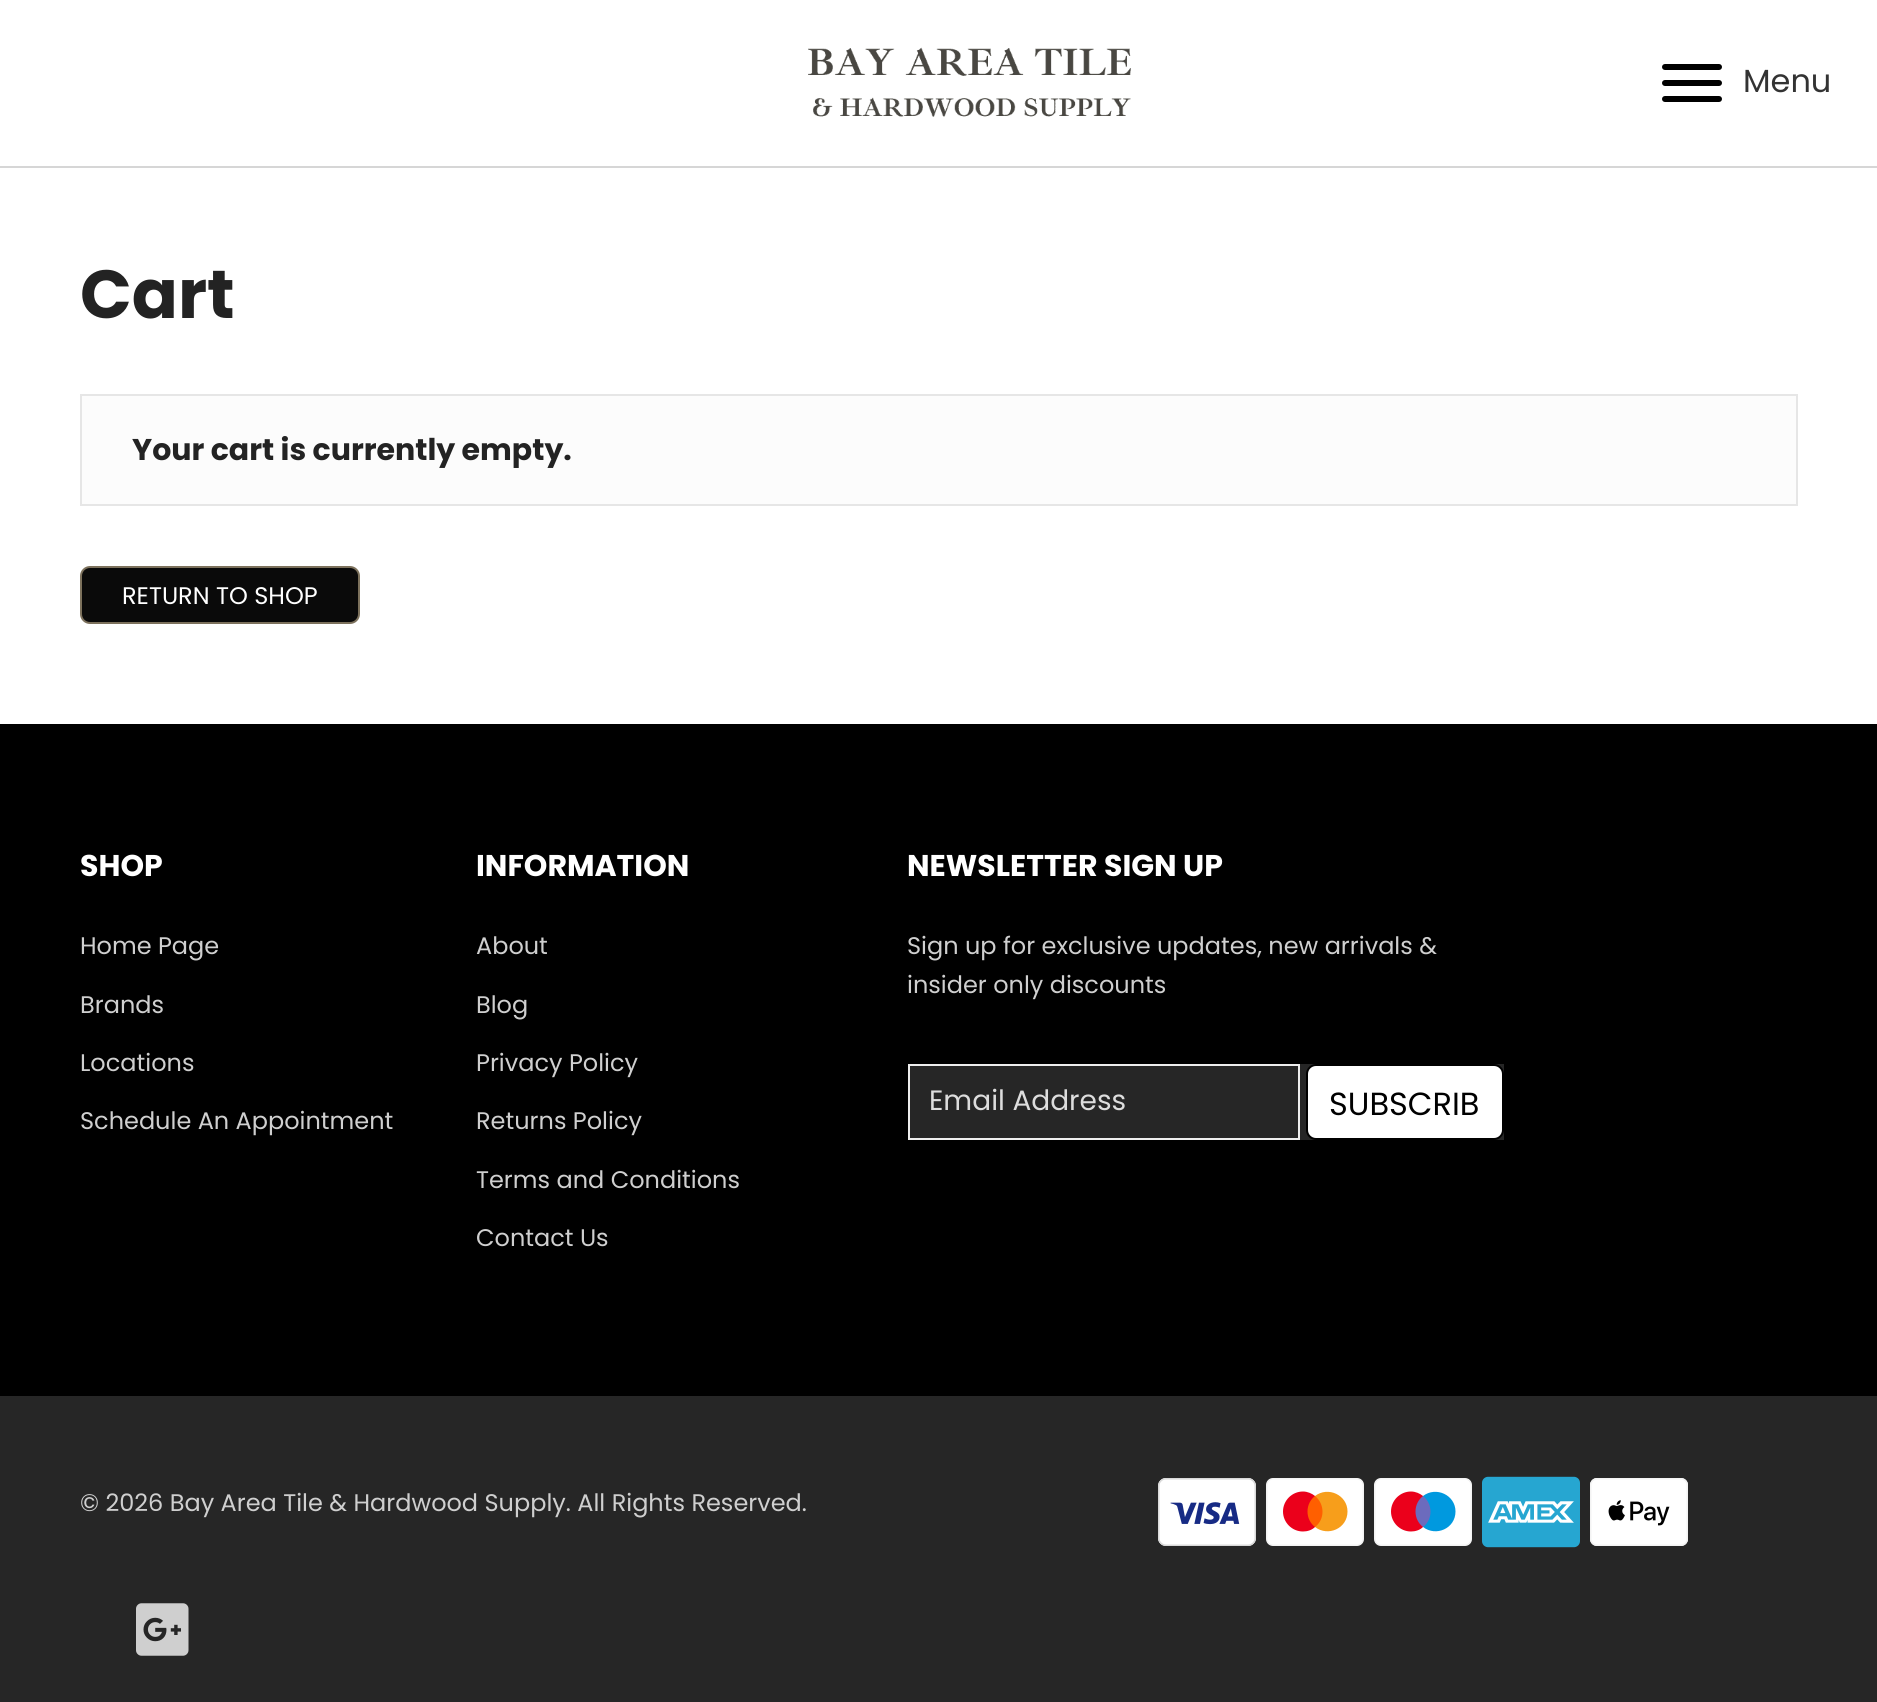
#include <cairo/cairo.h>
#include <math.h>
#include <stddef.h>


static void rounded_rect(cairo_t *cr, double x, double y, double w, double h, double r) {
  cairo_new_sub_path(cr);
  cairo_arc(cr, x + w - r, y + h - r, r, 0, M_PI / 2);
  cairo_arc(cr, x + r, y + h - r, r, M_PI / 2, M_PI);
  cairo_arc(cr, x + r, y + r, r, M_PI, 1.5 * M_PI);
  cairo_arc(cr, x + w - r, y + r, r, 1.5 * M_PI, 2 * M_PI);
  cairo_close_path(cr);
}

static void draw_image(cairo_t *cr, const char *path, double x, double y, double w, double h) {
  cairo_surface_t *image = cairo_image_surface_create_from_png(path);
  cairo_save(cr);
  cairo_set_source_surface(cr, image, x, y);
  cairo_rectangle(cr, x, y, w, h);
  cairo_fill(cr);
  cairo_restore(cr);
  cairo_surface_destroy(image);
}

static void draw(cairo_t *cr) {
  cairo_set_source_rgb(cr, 1, 1, 1);
  cairo_paint(cr);
  cairo_set_source_rgb(cr, 214 / 255.0, 214 / 255.0, 214 / 255.0);
  cairo_rectangle(cr, 0, 166, 1877, 2);
  cairo_fill(cr);
  draw_image(cr, "images/1.png", 808, 47, 323, 70);
  cairo_set_source_rgb(cr, 0, 0, 0);
  rounded_rect(cr, 1662, 80, 60, 6, 3);
  cairo_fill(cr);
  rounded_rect(cr, 1662, 64, 60, 6, 3);
  cairo_fill(cr);
  rounded_rect(cr, 1662, 96, 60, 6, 3);
  cairo_fill(cr);
  cairo_set_source_rgb(cr, 252 / 255.0, 252 / 255.0, 252 / 255.0);
  cairo_rectangle(cr, 81, 395, 1716, 110);
  cairo_fill_preserve(cr);
  cairo_set_source_rgb(cr, 230 / 255.0, 230 / 255.0, 230 / 255.0);
  cairo_stroke(cr);
  cairo_set_source_rgb(cr, 10 / 255.0, 10 / 255.0, 10 / 255.0);
  rounded_rect(cr, 81, 567, 278, 56, 9);
  cairo_fill_preserve(cr);
  cairo_set_source_rgb(cr, 124 / 255.0, 113 / 255.0, 92 / 255.0);
  cairo_stroke(cr);
  cairo_set_source_rgb(cr, 0, 0, 0);
  cairo_rectangle(cr, 0, 724, 1877, 672);
  cairo_fill(cr);
  cairo_set_source_rgb(cr, 38 / 255.0, 38 / 255.0, 38 / 255.0);
  cairo_rectangle(cr, 910, 1064, 594, 76);
  cairo_fill(cr);
  cairo_rectangle(cr, 909, 1065, 390, 74);
  cairo_set_source_rgb(cr, 238 / 255.0, 238 / 255.0, 238 / 255.0);
  cairo_stroke(cr);
  cairo_set_source_rgb(cr, 1, 1, 1);
  rounded_rect(cr, 1307, 1065, 196, 74, 9);
  cairo_fill_preserve(cr);
  cairo_set_source_rgb(cr, 0, 0, 0);
  cairo_stroke(cr);
  cairo_set_source_rgb(cr, 38 / 255.0, 38 / 255.0, 38 / 255.0);
  cairo_rectangle(cr, 0, 1396, 1877, 306);
  cairo_fill(cr);
  draw_image(cr, "images/2.png", 136, 1603, 53, 53);
  draw_image(cr, "images/3.png", 1158, 1478, 98, 68);
  cairo_set_source_rgb(cr, 1, 1, 1);
  rounded_rect(cr, 1266.75, 1478.75, 96.5, 66.5, 6.25);
  cairo_fill_preserve(cr);
  cairo_set_source_rgb(cr, 243 / 255.0, 243 / 255.0, 243 / 255.0);
  cairo_set_line_width(cr, 1.5);
  cairo_stroke(cr);
  cairo_set_source_rgb(cr, 1, 95 / 255.0, 0);
  cairo_rectangle(cr, 1307, 1496, 16, 31);
  cairo_fill(cr);
  cairo_set_source_rgb(cr, 235 / 255.0, 0, 27 / 255.0);
  cairo_new_path(cr);
  cairo_move_to(cr, 1307.5, 1511.5);
  cairo_curve_to(cr, 1307.5, 1505, 1310.5, 1499.5, 1315, 1496);
  cairo_curve_to(cr, 1312, 1493.5, 1307.5, 1491.5, 1303, 1491.5);
  cairo_curve_to(cr, 1292, 1491.5, 1283, 1500.5, 1283, 1511.5);
  cairo_curve_to(cr, 1283, 1522.5, 1292, 1531.5, 1303, 1531.5);
  cairo_curve_to(cr, 1307.5, 1531.5, 1312, 1530, 1315, 1527);
  cairo_curve_to(cr, 1310.5, 1523.5, 1307.5, 1518, 1307.5, 1511.5);
  cairo_fill(cr);
  cairo_set_source_rgb(cr, 247 / 255.0, 158 / 255.0, 27 / 255.0);
  cairo_new_path(cr);
  cairo_move_to(cr, 1347.5, 1511.5);
  cairo_curve_to(cr, 1347.5, 1528.5, 1328, 1537, 1315, 1527);
  cairo_curve_to(cr, 1325, 1519.5, 1325, 1504, 1315, 1496);
  cairo_curve_to(cr, 1328, 1486, 1347.5, 1495, 1347.5, 1511.5);
  cairo_fill(cr);
  cairo_set_source_rgb(cr, 1, 1, 1);
  rounded_rect(cr, 1374.75, 1478.75, 96.5, 66.5, 6.25);
  cairo_fill_preserve(cr);
  cairo_set_source_rgb(cr, 243 / 255.0, 243 / 255.0, 243 / 255.0);
  cairo_stroke(cr);
  cairo_set_source_rgb(cr, 108 / 255.0, 107 / 255.0, 189 / 255.0);
  cairo_rectangle(cr, 1415, 1496, 16, 31);
  cairo_fill(cr);
  cairo_set_source_rgb(cr, 235 / 255.0, 0, 27 / 255.0);
  cairo_new_path(cr);
  cairo_move_to(cr, 1415.5, 1511.5);
  cairo_curve_to(cr, 1415.5, 1505, 1418.5, 1499.5, 1423, 1496);
  cairo_curve_to(cr, 1420, 1493.5, 1415.5, 1491.5, 1411, 1491.5);
  cairo_curve_to(cr, 1400, 1491.5, 1391, 1500.5, 1391, 1511.5);
  cairo_curve_to(cr, 1391, 1522.5, 1400, 1531.5, 1411, 1531.5);
  cairo_curve_to(cr, 1415.5, 1531.5, 1420, 1530, 1423, 1527);
  cairo_curve_to(cr, 1418.5, 1523.5, 1415.5, 1518, 1415.5, 1511.5);
  cairo_fill(cr);
  cairo_set_source_rgb(cr, 0, 153 / 255.0, 223 / 255.0);
  cairo_new_path(cr);
  cairo_move_to(cr, 1455.5, 1511.5);
  cairo_curve_to(cr, 1455.5, 1528.5, 1436, 1537, 1423, 1527);
  cairo_curve_to(cr, 1433, 1519.5, 1433, 1504, 1423, 1496);
  cairo_curve_to(cr, 1436, 1486, 1455.5, 1495, 1455.5, 1511.5);
  cairo_fill(cr);
  draw_image(cr, "images/4.png", 1482, 1476, 98, 72);
  draw_image(cr, "images/5.png", 1590, 1478, 98, 68);
  cairo_select_font_face(cr, "Poppins", CAIRO_FONT_SLANT_NORMAL, CAIRO_FONT_WEIGHT_NORMAL);
  cairo_set_font_size(cr, 32);
  cairo_set_source_rgb(cr, 51 / 255.0, 51 / 255.0, 51 / 255.0);
  cairo_move_to(cr, 1743, 92);
  cairo_show_text(cr, "Menu");
  cairo_select_font_face(cr, "Poppins", CAIRO_FONT_SLANT_NORMAL, CAIRO_FONT_WEIGHT_BOLD);
  cairo_set_font_size(cr, 68);
  cairo_set_source_rgb(cr, 35 / 255.0, 35 / 255.0, 35 / 255.0);
  cairo_move_to(cr, 80, 318);
  cairo_show_text(cr, "Cart");
  cairo_set_font_size(cr, 30);
  cairo_move_to(cr, 132, 460);
  cairo_show_text(cr, "Your cart is currently empty.");
  cairo_select_font_face(cr, "Poppins", CAIRO_FONT_SLANT_NORMAL, CAIRO_FONT_WEIGHT_NORMAL);
  cairo_set_font_size(cr, 24);
  cairo_set_source_rgb(cr, 1, 1, 1);
  cairo_move_to(cr, 122, 604);
  cairo_show_text(cr, "RETURN TO SHOP");
  cairo_select_font_face(cr, "Poppins", CAIRO_FONT_SLANT_NORMAL, CAIRO_FONT_WEIGHT_BOLD);
  cairo_set_font_size(cr, 30);
  cairo_move_to(cr, 80, 876);
  cairo_show_text(cr, "SHOP");
  cairo_select_font_face(cr, "Poppins", CAIRO_FONT_SLANT_NORMAL, CAIRO_FONT_WEIGHT_NORMAL);
  cairo_set_font_size(cr, 24);
  cairo_set_source_rgb(cr, 207 / 255.0, 207 / 255.0, 207 / 255.0);
  cairo_move_to(cr, 80, 954);
  cairo_show_text(cr, "Home Page");
  cairo_move_to(cr, 80, 1013);
  cairo_show_text(cr, "Brands");
  cairo_move_to(cr, 80, 1071);
  cairo_show_text(cr, "Locations");
  cairo_move_to(cr, 80, 1129);
  cairo_show_text(cr, "Schedule An Appointment");
  cairo_select_font_face(cr, "Poppins", CAIRO_FONT_SLANT_NORMAL, CAIRO_FONT_WEIGHT_BOLD);
  cairo_set_font_size(cr, 30);
  cairo_set_source_rgb(cr, 1, 1, 1);
  cairo_move_to(cr, 476, 876);
  cairo_show_text(cr, "INFORMATION");
  cairo_select_font_face(cr, "Poppins", CAIRO_FONT_SLANT_NORMAL, CAIRO_FONT_WEIGHT_NORMAL);
  cairo_set_font_size(cr, 24);
  cairo_set_source_rgb(cr, 207 / 255.0, 207 / 255.0, 207 / 255.0);
  cairo_move_to(cr, 476, 954);
  cairo_show_text(cr, "About");
  cairo_move_to(cr, 476, 1013);
  cairo_show_text(cr, "Blog");
  cairo_move_to(cr, 476, 1071);
  cairo_show_text(cr, "Privacy Policy");
  cairo_move_to(cr, 476, 1129);
  cairo_show_text(cr, "Returns Policy");
  cairo_move_to(cr, 476, 1188);
  cairo_show_text(cr, "Terms and Conditions");
  cairo_move_to(cr, 476, 1246);
  cairo_show_text(cr, "Contact Us");
  cairo_select_font_face(cr, "Poppins", CAIRO_FONT_SLANT_NORMAL, CAIRO_FONT_WEIGHT_BOLD);
  cairo_set_font_size(cr, 30);
  cairo_set_source_rgb(cr, 1, 1, 1);
  cairo_move_to(cr, 907, 876);
  cairo_show_text(cr, "NEWSLETTER SIGN UP");
  cairo_select_font_face(cr, "Poppins", CAIRO_FONT_SLANT_NORMAL, CAIRO_FONT_WEIGHT_NORMAL);
  cairo_set_font_size(cr, 24);
  cairo_set_source_rgb(cr, 207 / 255.0, 207 / 255.0, 207 / 255.0);
  cairo_move_to(cr, 907, 954);
  cairo_show_text(cr, "Sign up for exclusive updates, new arrivals &");
  cairo_move_to(cr, 907, 993);
  cairo_show_text(cr, "insider only discounts");
  cairo_set_font_size(cr, 28);
  cairo_set_source_rgb(cr, 221 / 255.0, 221 / 255.0, 221 / 255.0);
  cairo_move_to(cr, 929, 1110);
  cairo_show_text(cr, "Email Address");
  cairo_set_font_size(cr, 32);
  cairo_set_source_rgb(cr, 0, 0, 0);
  cairo_move_to(cr, 1329, 1115);
  cairo_show_text(cr, "SUBSCRIB");
  cairo_set_font_size(cr, 24);
  cairo_set_source_rgb(cr, 207 / 255.0, 207 / 255.0, 207 / 255.0);
  cairo_move_to(cr, 80, 1511);
  cairo_show_text(cr, "© 2026 Bay Area Tile & Hardwood Supply. All Rights Reserved.");
}

int main(void) {
  cairo_surface_t *surface = cairo_image_surface_create(CAIRO_FORMAT_RGB24, 1877, 1702);
  cairo_t *cr = cairo_create(surface);
  cairo_font_options_t *options = cairo_font_options_create();
  cairo_font_options_set_hint_metrics(options, CAIRO_HINT_METRICS_OFF);
  cairo_font_options_set_hint_style(options, CAIRO_HINT_STYLE_NONE);
  cairo_set_font_options(cr, options);
  cairo_set_miter_limit(cr, 4);
  draw(cr);
  cairo_surface_write_to_png(surface, "out.png");
  cairo_font_options_destroy(options);
  cairo_destroy(cr);
  cairo_surface_destroy(surface);
  return 0;
}
